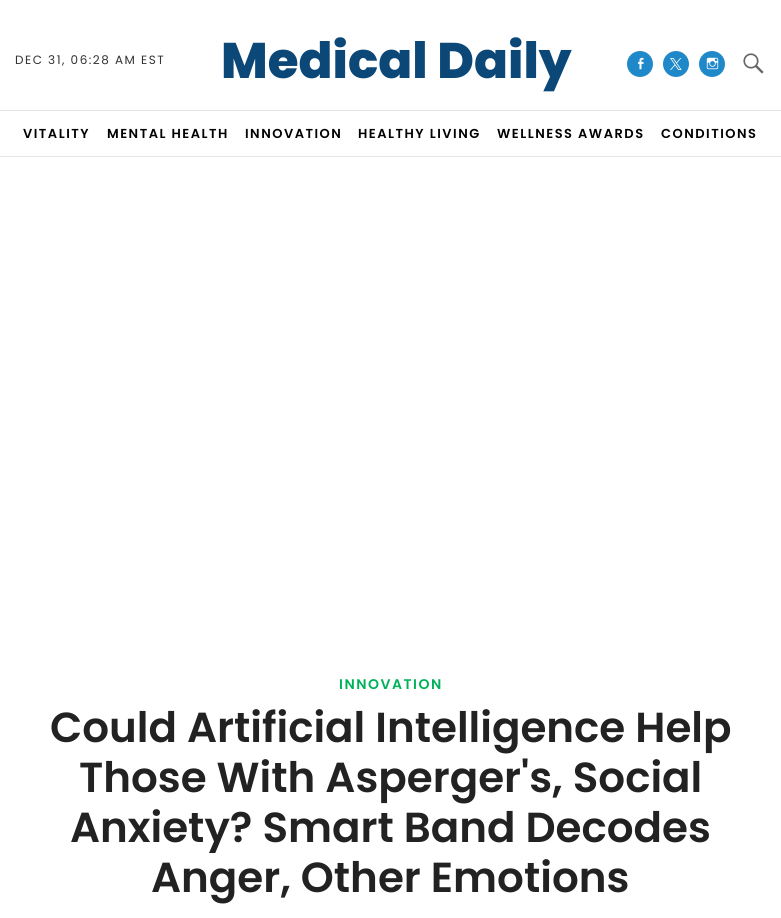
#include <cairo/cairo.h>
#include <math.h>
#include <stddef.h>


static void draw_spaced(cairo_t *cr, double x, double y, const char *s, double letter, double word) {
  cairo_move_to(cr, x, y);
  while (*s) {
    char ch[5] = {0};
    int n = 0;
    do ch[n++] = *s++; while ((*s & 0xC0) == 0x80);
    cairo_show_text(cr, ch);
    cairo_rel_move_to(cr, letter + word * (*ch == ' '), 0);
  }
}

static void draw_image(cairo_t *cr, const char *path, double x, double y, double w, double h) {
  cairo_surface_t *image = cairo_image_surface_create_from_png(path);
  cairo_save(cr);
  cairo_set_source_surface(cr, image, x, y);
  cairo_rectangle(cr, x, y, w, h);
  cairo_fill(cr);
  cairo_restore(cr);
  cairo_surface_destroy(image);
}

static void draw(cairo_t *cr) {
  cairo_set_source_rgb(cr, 1, 1, 1);
  cairo_paint(cr);
  cairo_set_source_rgb(cr, 229 / 255.0, 229 / 255.0, 229 / 255.0);
  cairo_rectangle(cr, 0, 156, 781, 1);
  cairo_fill(cr);
  cairo_set_source_rgb(cr, 31 / 255.0, 136 / 255.0, 201 / 255.0);
  cairo_arc(cr, 640, 64, 13, 0, 2 * M_PI);
  cairo_fill(cr);
  draw_image(cr, "images/1.png", 638, 57, 6, 13);
  cairo_arc(cr, 676, 64, 13, 0, 2 * M_PI);
  cairo_fill(cr);
  draw_image(cr, "images/2.png", 670, 58, 12, 12);
  cairo_arc(cr, 712, 64, 13, 0, 2 * M_PI);
  cairo_fill(cr);
  draw_image(cr, "images/3.png", 706, 57, 13, 13);
  draw_image(cr, "images/4.png", 743, 53, 21, 21);
  cairo_set_source_rgb(cr, 229 / 255.0, 229 / 255.0, 229 / 255.0);
  cairo_rectangle(cr, 0, 110, 781, 1);
  cairo_fill(cr);
  cairo_select_font_face(cr, "Poppins", CAIRO_FONT_SLANT_NORMAL, CAIRO_FONT_WEIGHT_NORMAL);
  cairo_set_font_size(cr, 12);
  cairo_set_source_rgb(cr, 51 / 255.0, 51 / 255.0, 51 / 255.0);
  draw_spaced(cr, 15, 64, "DEC 31, 06:28 AM EST", 1.5, 0);
  cairo_select_font_face(cr, "Poppins ExtraBold", CAIRO_FONT_SLANT_NORMAL, CAIRO_FONT_WEIGHT_NORMAL);
  cairo_set_font_size(cr, 50);
  cairo_set_source_rgb(cr, 11 / 255.0, 71 / 255.0, 119 / 255.0);
  cairo_move_to(cr, 221, 78);
  cairo_show_text(cr, "Medical Daily");
  cairo_select_font_face(cr, "Poppins SemiBold", CAIRO_FONT_SLANT_NORMAL, CAIRO_FONT_WEIGHT_NORMAL);
  cairo_set_font_size(cr, 13);
  cairo_set_source_rgb(cr, 0, 0, 0);
  draw_spaced(cr, 23, 138, "VITALITY", 1.5, 0);
  draw_spaced(cr, 107, 138, "MENTAL HEALTH", 1.5, 0);
  draw_spaced(cr, 245, 138, "INNOVATION", 1.5, 0);
  draw_spaced(cr, 358, 138, "HEALTHY LIVING", 1.5, 0);
  draw_spaced(cr, 497, 138, "WELLNESS AWARDS", 1.5, 0);
  draw_spaced(cr, 661, 138, "CONDITIONS", 1.5, 0);
  cairo_set_font_size(cr, 14);
  cairo_set_source_rgb(cr, 0, 177 / 255.0, 89 / 255.0);
  draw_spaced(cr, 339, 689, "INNOVATION", 1.5, 0);
  cairo_set_font_size(cr, 42);
  cairo_set_source_rgb(cr, 34 / 255.0, 34 / 255.0, 34 / 255.0);
  cairo_move_to(cr, 50, 742);
  cairo_show_text(cr, "Could Artificial Intelligence Help");
  cairo_move_to(cr, 79, 792);
  cairo_show_text(cr, "Those With Asperger's, Social");
  cairo_move_to(cr, 70, 842);
  cairo_show_text(cr, "Anxiety? Smart Band Decodes");
  cairo_move_to(cr, 151, 892);
  cairo_show_text(cr, "Anger, Other Emotions");
}

int main(void) {
  cairo_surface_t *surface = cairo_image_surface_create(CAIRO_FORMAT_RGB24, 781, 918);
  cairo_t *cr = cairo_create(surface);
  cairo_font_options_t *options = cairo_font_options_create();
  cairo_font_options_set_hint_metrics(options, CAIRO_HINT_METRICS_OFF);
  cairo_font_options_set_hint_style(options, CAIRO_HINT_STYLE_NONE);
  cairo_set_font_options(cr, options);
  cairo_set_miter_limit(cr, 4);
  draw(cr);
  cairo_surface_write_to_png(surface, "out.png");
  cairo_font_options_destroy(options);
  cairo_destroy(cr);
  cairo_surface_destroy(surface);
  return 0;
}
